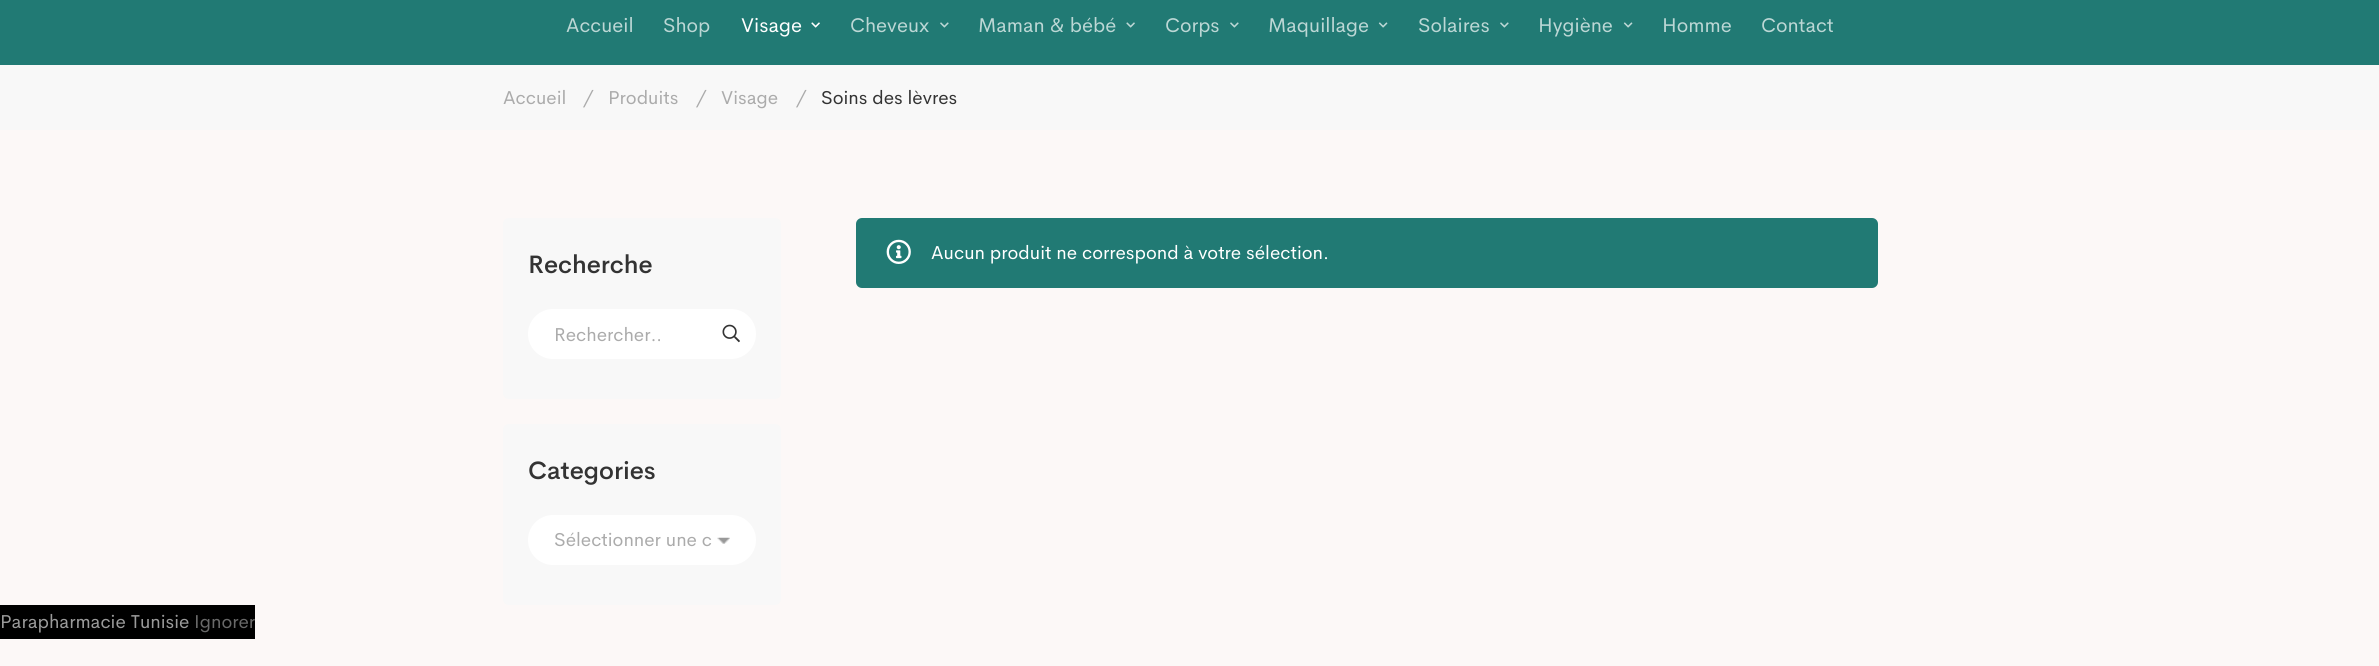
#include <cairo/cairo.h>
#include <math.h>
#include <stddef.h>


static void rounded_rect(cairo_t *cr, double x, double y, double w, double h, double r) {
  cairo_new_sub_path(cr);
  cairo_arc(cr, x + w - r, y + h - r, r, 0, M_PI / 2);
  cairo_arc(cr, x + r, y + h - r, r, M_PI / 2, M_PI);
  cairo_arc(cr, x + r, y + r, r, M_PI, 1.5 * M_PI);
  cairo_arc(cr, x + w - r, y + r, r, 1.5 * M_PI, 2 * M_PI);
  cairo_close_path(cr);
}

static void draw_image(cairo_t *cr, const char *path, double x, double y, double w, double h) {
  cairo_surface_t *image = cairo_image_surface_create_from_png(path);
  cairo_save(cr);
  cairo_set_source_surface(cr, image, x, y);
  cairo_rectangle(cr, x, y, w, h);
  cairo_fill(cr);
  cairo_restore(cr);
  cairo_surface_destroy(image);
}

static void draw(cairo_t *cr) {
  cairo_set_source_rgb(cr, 252 / 255.0, 248 / 255.0, 247 / 255.0);
  cairo_paint(cr);
  cairo_set_source_rgb(cr, 33 / 255.0, 122 / 255.0, 116 / 255.0);
  cairo_rectangle(cr, 0, 0, 2379, 65);
  cairo_fill(cr);
  draw_image(cr, "images/1.png", 811, 22, 9, 6);
  draw_image(cr, "images/2.png", 940, 22, 9, 6);
  draw_image(cr, "images/3.png", 1126, 22, 9, 6);
  draw_image(cr, "images/2.png", 1230, 22, 9, 6);
  draw_image(cr, "images/4.png", 1378, 22, 10, 6);
  draw_image(cr, "images/2.png", 1500, 22, 9, 6);
  draw_image(cr, "images/4.png", 1623, 22, 10, 6);
  cairo_set_source_rgb(cr, 248 / 255.0, 248 / 255.0, 248 / 255.0);
  cairo_rectangle(cr, 0, 65, 2379, 65);
  cairo_fill(cr);
  rounded_rect(cr, 503, 218, 278, 181, 6);
  cairo_fill(cr);
  cairo_set_source_rgb(cr, 1, 1, 1);
  rounded_rect(cr, 528, 309, 228, 50, 25);
  cairo_fill(cr);
  draw_image(cr, "images/5.png", 722, 324, 18, 19);
  cairo_set_source_rgb(cr, 248 / 255.0, 248 / 255.0, 248 / 255.0);
  rounded_rect(cr, 503, 424, 278, 181, 6);
  cairo_fill(cr);
  cairo_set_source_rgb(cr, 1, 1, 1);
  rounded_rect(cr, 528, 515, 228, 50, 25);
  cairo_fill(cr);
  draw_image(cr, "images/6.png", 717, 537, 13, 7);
  cairo_set_source_rgb(cr, 33 / 255.0, 122 / 255.0, 116 / 255.0);
  rounded_rect(cr, 856, 218, 1022, 70, 6);
  cairo_fill(cr);
  draw_image(cr, "images/7.png", 886, 239, 25, 25);
  cairo_set_source_rgb(cr, 0, 0, 0);
  cairo_rectangle(cr, 0, 605, 255, 34);
  cairo_fill(cr);
  cairo_select_font_face(cr, "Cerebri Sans", CAIRO_FONT_SLANT_NORMAL, CAIRO_FONT_WEIGHT_NORMAL);
  cairo_set_font_size(cr, 20);
  cairo_set_source_rgb(cr, 188 / 255.0, 215 / 255.0, 213 / 255.0);
  cairo_move_to(cr, 566, 32);
  cairo_show_text(cr, "Accueil");
  cairo_move_to(cr, 663, 32);
  cairo_show_text(cr, "Shop");
  cairo_set_source_rgb(cr, 1, 1, 1);
  cairo_move_to(cr, 741, 32);
  cairo_show_text(cr, "Visage");
  cairo_set_source_rgb(cr, 188 / 255.0, 215 / 255.0, 213 / 255.0);
  cairo_move_to(cr, 850, 32);
  cairo_show_text(cr, "Cheveux");
  cairo_move_to(cr, 978, 32);
  cairo_show_text(cr, "Maman & bébé");
  cairo_move_to(cr, 1165, 32);
  cairo_show_text(cr, "Corps");
  cairo_move_to(cr, 1268, 32);
  cairo_show_text(cr, "Maquillage");
  cairo_move_to(cr, 1418, 32);
  cairo_show_text(cr, "Solaires");
  cairo_move_to(cr, 1538, 32);
  cairo_show_text(cr, "Hygiène");
  cairo_move_to(cr, 1662, 32);
  cairo_show_text(cr, "Homme");
  cairo_move_to(cr, 1761, 32);
  cairo_show_text(cr, "Contact");
  cairo_set_font_size(cr, 18.75);
  cairo_set_source_rgb(cr, 171 / 255.0, 171 / 255.0, 171 / 255.0);
  cairo_move_to(cr, 503, 104);
  cairo_show_text(cr, "Accueil");
  cairo_move_to(cr, 583, 104);
  cairo_show_text(cr, "/");
  cairo_move_to(cr, 608, 104);
  cairo_show_text(cr, "Produits");
  cairo_move_to(cr, 696, 104);
  cairo_show_text(cr, "/");
  cairo_move_to(cr, 721, 104);
  cairo_show_text(cr, "Visage");
  cairo_move_to(cr, 796, 104);
  cairo_show_text(cr, "/");
  cairo_set_source_rgb(cr, 51 / 255.0, 51 / 255.0, 51 / 255.0);
  cairo_move_to(cr, 821, 104);
  cairo_show_text(cr, "Soins des lèvres");
  cairo_select_font_face(cr, "Cerebri Sans Medium", CAIRO_FONT_SLANT_NORMAL, CAIRO_FONT_WEIGHT_NORMAL);
  cairo_set_font_size(cr, 25);
  cairo_move_to(cr, 528, 273);
  cairo_show_text(cr, "Recherche");
  cairo_save(cr);
  cairo_rectangle(cr, 554, 323, 106, 23);
  cairo_clip(cr);
  cairo_select_font_face(cr, "Cerebri Sans", CAIRO_FONT_SLANT_NORMAL, CAIRO_FONT_WEIGHT_NORMAL);
  cairo_set_font_size(cr, 18.75);
  cairo_set_source_rgb(cr, 171 / 255.0, 171 / 255.0, 171 / 255.0);
  cairo_move_to(cr, 554, 341);
  cairo_show_text(cr, "Rechercher…");
  cairo_restore(cr);
  cairo_move_to(cr, 528, 479);
  cairo_show_text(cr, "Categories");
  cairo_select_font_face(cr, "Cerebri Sans", CAIRO_FONT_SLANT_NORMAL, CAIRO_FONT_WEIGHT_NORMAL);
  cairo_set_font_size(cr, 18.75);
  cairo_set_source_rgb(cr, 171 / 255.0, 171 / 255.0, 171 / 255.0);
  cairo_move_to(cr, 554, 546);
  cairo_show_text(cr, "Sélectionner une c");
  cairo_set_source_rgb(cr, 1, 1, 1);
  cairo_move_to(cr, 931, 259);
  cairo_show_text(cr, "Aucun produit ne correspond à votre sélection.");
  cairo_set_source_rgb(cr, 155 / 255.0, 155 / 255.0, 155 / 255.0);
  cairo_move_to(cr, 0, 628);
  cairo_show_text(cr, "Parapharmacie Tunisie");
  cairo_set_source_rgb(cr, 105 / 255.0, 105 / 255.0, 105 / 255.0);
  cairo_move_to(cr, 194, 628);
  cairo_show_text(cr, "Ignorer");
}

int main(void) {
  cairo_surface_t *surface = cairo_image_surface_create(CAIRO_FORMAT_RGB24, 2379, 666);
  cairo_t *cr = cairo_create(surface);
  cairo_font_options_t *options = cairo_font_options_create();
  cairo_font_options_set_hint_metrics(options, CAIRO_HINT_METRICS_OFF);
  cairo_font_options_set_hint_style(options, CAIRO_HINT_STYLE_NONE);
  cairo_set_font_options(cr, options);
  cairo_set_miter_limit(cr, 4);
  draw(cr);
  cairo_surface_write_to_png(surface, "out.png");
  cairo_font_options_destroy(options);
  cairo_destroy(cr);
  cairo_surface_destroy(surface);
  return 0;
}
